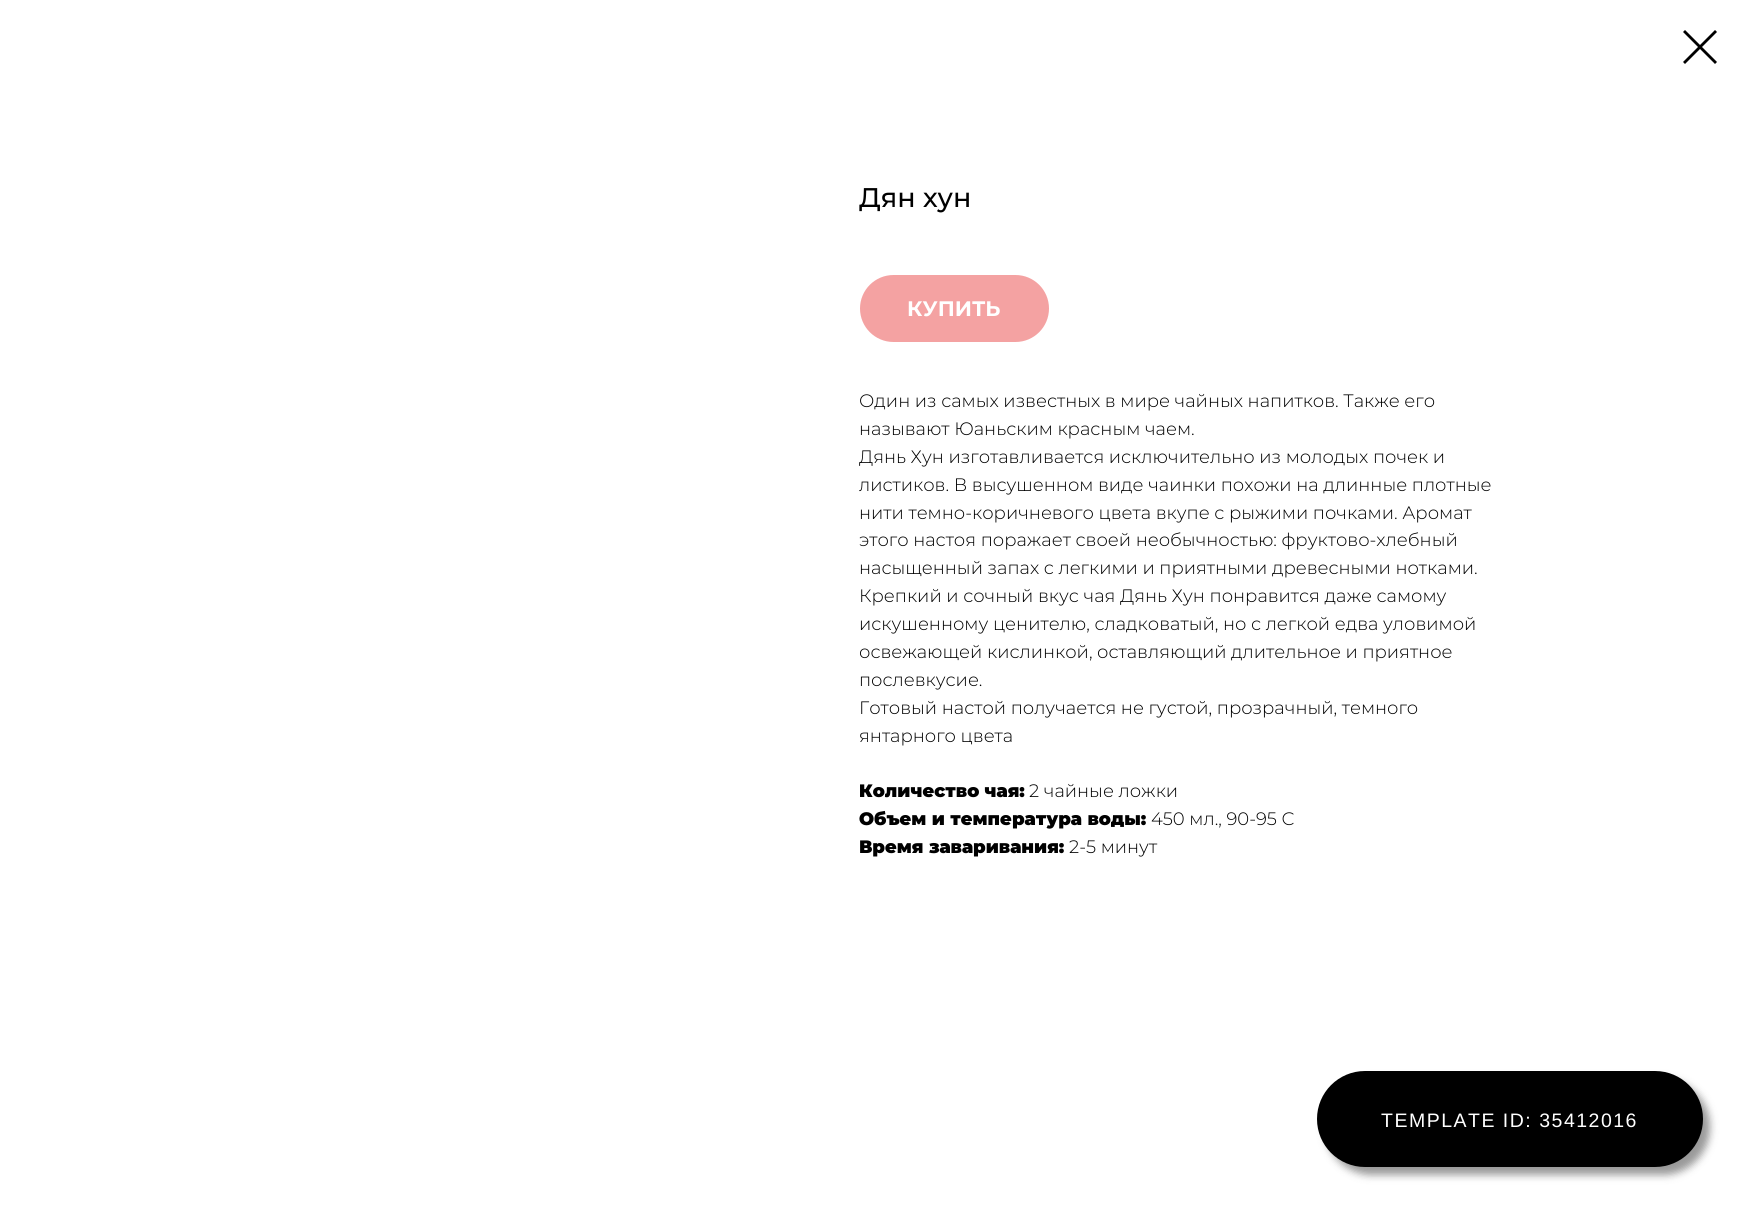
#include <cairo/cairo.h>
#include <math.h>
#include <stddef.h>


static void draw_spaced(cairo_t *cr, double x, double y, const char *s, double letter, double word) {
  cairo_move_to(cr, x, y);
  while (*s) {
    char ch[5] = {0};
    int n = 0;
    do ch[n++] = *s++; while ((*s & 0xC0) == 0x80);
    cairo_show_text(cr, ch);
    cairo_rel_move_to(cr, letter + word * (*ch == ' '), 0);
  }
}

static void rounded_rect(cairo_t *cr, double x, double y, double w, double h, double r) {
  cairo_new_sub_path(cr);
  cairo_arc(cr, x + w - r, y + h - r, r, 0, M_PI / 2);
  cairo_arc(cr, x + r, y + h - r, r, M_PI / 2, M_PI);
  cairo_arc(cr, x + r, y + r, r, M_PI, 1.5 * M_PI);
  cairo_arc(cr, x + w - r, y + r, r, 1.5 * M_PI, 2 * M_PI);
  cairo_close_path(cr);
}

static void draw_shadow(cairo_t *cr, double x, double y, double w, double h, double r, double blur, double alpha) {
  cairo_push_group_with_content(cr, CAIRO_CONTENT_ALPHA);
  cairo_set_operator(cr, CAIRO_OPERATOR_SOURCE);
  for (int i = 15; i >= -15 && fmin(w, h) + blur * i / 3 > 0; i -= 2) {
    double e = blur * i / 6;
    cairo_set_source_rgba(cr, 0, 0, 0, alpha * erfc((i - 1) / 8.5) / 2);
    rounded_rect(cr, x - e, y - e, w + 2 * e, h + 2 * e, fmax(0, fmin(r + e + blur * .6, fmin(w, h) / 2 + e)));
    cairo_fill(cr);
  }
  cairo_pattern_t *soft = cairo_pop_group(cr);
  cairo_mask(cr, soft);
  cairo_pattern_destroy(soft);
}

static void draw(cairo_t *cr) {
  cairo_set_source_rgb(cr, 1, 1, 1);
  cairo_paint(cr);
  cairo_set_source_rgb(cr, 0, 0, 0);
  cairo_set_fill_rule(cr, CAIRO_FILL_RULE_EVEN_ODD);
  cairo_new_path(cr);
  cairo_move_to(cr, 1683, 32);
  cairo_line_to(cr, 1685, 30);
  cairo_line_to(cr, 1717, 62);
  cairo_line_to(cr, 1715, 64);
  cairo_close_path(cr);
  cairo_fill(cr);
  cairo_new_path(cr);
  cairo_move_to(cr, 1715, 30);
  cairo_line_to(cr, 1717, 32);
  cairo_line_to(cr, 1685, 64);
  cairo_line_to(cr, 1683, 62);
  cairo_close_path(cr);
  cairo_fill(cr);
  cairo_set_source_rgb(cr, 244 / 255.0, 162 / 255.0, 162 / 255.0);
  rounded_rect(cr, 860, 275, 189, 67, 33.5);
  cairo_fill(cr);
  cairo_set_source_rgb(cr, 0, 0, 0);
  draw_shadow(cr, 1325, 1079, 385, 96, 48, 4, 0.4);
  cairo_set_source_rgb(cr, 0, 0, 0);
  rounded_rect(cr, 1317, 1071, 386, 96, 48);
  cairo_fill(cr);
  cairo_select_font_face(cr, "Montserrat Medium", CAIRO_FONT_SLANT_NORMAL, CAIRO_FONT_WEIGHT_NORMAL);
  cairo_set_font_size(cr, 27);
  cairo_move_to(cr, 859, 207);
  cairo_show_text(cr, "Дян хун");
  cairo_select_font_face(cr, "Montserrat", CAIRO_FONT_SLANT_NORMAL, CAIRO_FONT_WEIGHT_BOLD);
  cairo_set_font_size(cr, 21);
  cairo_set_source_rgb(cr, 1, 1, 1);
  cairo_move_to(cr, 907, 316);
  cairo_show_text(cr, "КУПИТЬ");
  cairo_select_font_face(cr, "Montserrat Light", CAIRO_FONT_SLANT_NORMAL, CAIRO_FONT_WEIGHT_NORMAL);
  cairo_set_font_size(cr, 18);
  cairo_set_source_rgb(cr, 0, 0, 0);
  cairo_move_to(cr, 859, 407);
  cairo_show_text(cr, "Один из самых известных в мире чайных напитков. Также его");
  cairo_move_to(cr, 859, 435);
  cairo_show_text(cr, "называют Юаньским красным чаем.");
  cairo_move_to(cr, 859, 463);
  cairo_show_text(cr, "Дянь Хун изготавливается исключительно из молодых почек и");
  cairo_move_to(cr, 859, 491);
  cairo_show_text(cr, "листиков. В высушенном виде чаинки похожи на длинные плотные");
  cairo_move_to(cr, 859, 519);
  cairo_show_text(cr, "нити темно-коричневого цвета вкупе с рыжими почками. Аромат");
  cairo_move_to(cr, 859, 546);
  cairo_show_text(cr, "этого настоя поражает своей необычностью: фруктово-хлебный");
  cairo_move_to(cr, 859, 574);
  cairo_show_text(cr, "насыщенный запах с легкими и приятными древесными нотками.");
  cairo_move_to(cr, 859, 602);
  cairo_show_text(cr, "Крепкий и сочный вкус чая Дянь Хун понравится даже самому");
  cairo_move_to(cr, 859, 630);
  cairo_show_text(cr, "искушенному ценителю, сладковатый, но с легкой едва уловимой");
  cairo_move_to(cr, 859, 658);
  cairo_show_text(cr, "освежающей кислинкой, оставляющий длительное и приятное");
  cairo_move_to(cr, 859, 686);
  cairo_show_text(cr, "послевкусие.");
  cairo_move_to(cr, 859, 714);
  cairo_show_text(cr, "Готовый настой получается не густой, прозрачный, темного");
  cairo_move_to(cr, 859, 742);
  cairo_show_text(cr, "янтарного цвета");
  cairo_select_font_face(cr, "Montserrat Black", CAIRO_FONT_SLANT_NORMAL, CAIRO_FONT_WEIGHT_NORMAL);
  cairo_move_to(cr, 859, 797);
  cairo_show_text(cr, "Количество чая:");
  cairo_select_font_face(cr, "Montserrat Light", CAIRO_FONT_SLANT_NORMAL, CAIRO_FONT_WEIGHT_NORMAL);
  cairo_move_to(cr, 1029, 797);
  cairo_show_text(cr, "2 чайные ложки");
  cairo_select_font_face(cr, "Montserrat Black", CAIRO_FONT_SLANT_NORMAL, CAIRO_FONT_WEIGHT_NORMAL);
  cairo_move_to(cr, 859, 825);
  cairo_show_text(cr, "Объем и температура воды:");
  cairo_select_font_face(cr, "Montserrat Light", CAIRO_FONT_SLANT_NORMAL, CAIRO_FONT_WEIGHT_NORMAL);
  cairo_move_to(cr, 1151, 825);
  cairo_show_text(cr, "450 мл., 90-95 С");
  cairo_select_font_face(cr, "Montserrat Black", CAIRO_FONT_SLANT_NORMAL, CAIRO_FONT_WEIGHT_NORMAL);
  cairo_move_to(cr, 859, 853);
  cairo_show_text(cr, "Время заваривания:");
  cairo_select_font_face(cr, "Montserrat Light", CAIRO_FONT_SLANT_NORMAL, CAIRO_FONT_WEIGHT_NORMAL);
  cairo_move_to(cr, 1069, 853);
  cairo_show_text(cr, "2-5 минут");
  cairo_select_font_face(cr, "Liberation Sans", CAIRO_FONT_SLANT_NORMAL, CAIRO_FONT_WEIGHT_NORMAL);
  cairo_set_font_size(cr, 19.5);
  cairo_set_source_rgb(cr, 1, 1, 1);
  draw_spaced(cr, 1381, 1127, "TEMPLATE ID: 35412016", 1.5, 0);
}

int main(void) {
  cairo_surface_t *surface = cairo_image_surface_create(CAIRO_FORMAT_RGB24, 1747, 1212);
  cairo_t *cr = cairo_create(surface);
  cairo_font_options_t *options = cairo_font_options_create();
  cairo_font_options_set_hint_metrics(options, CAIRO_HINT_METRICS_OFF);
  cairo_font_options_set_hint_style(options, CAIRO_HINT_STYLE_NONE);
  cairo_set_font_options(cr, options);
  cairo_set_miter_limit(cr, 4);
  draw(cr);
  cairo_surface_write_to_png(surface, "out.png");
  cairo_font_options_destroy(options);
  cairo_destroy(cr);
  cairo_surface_destroy(surface);
  return 0;
}
